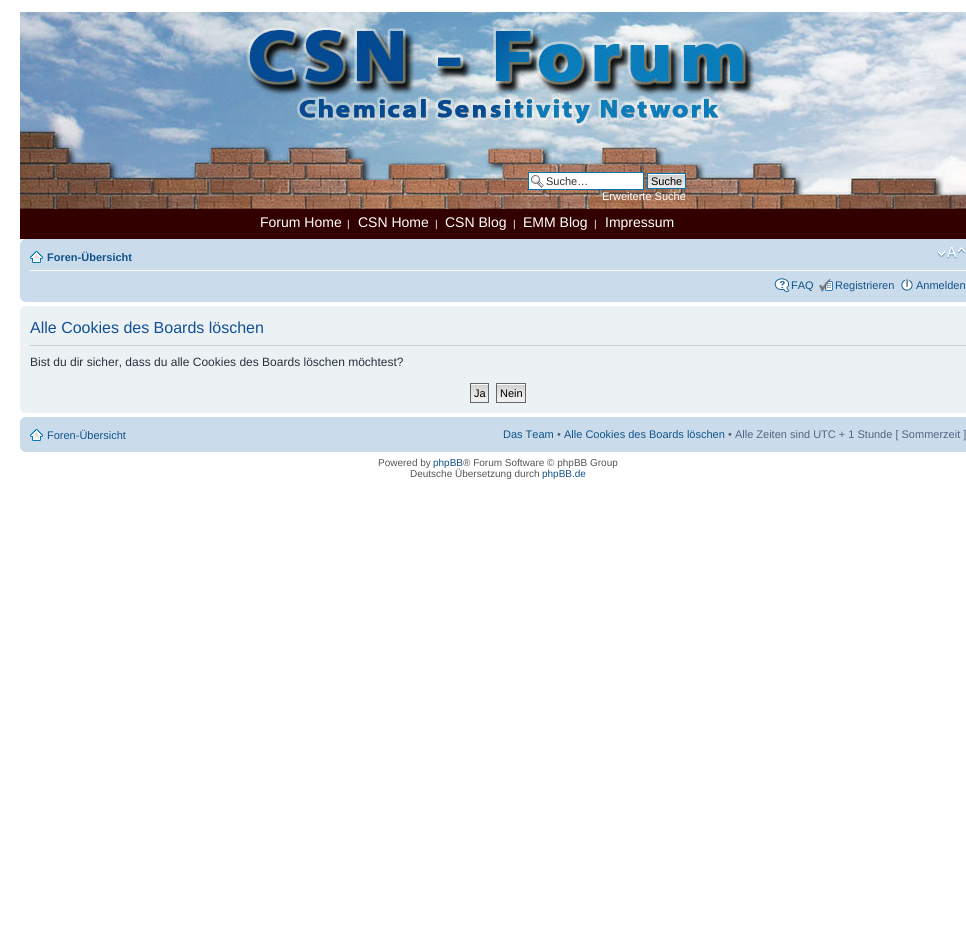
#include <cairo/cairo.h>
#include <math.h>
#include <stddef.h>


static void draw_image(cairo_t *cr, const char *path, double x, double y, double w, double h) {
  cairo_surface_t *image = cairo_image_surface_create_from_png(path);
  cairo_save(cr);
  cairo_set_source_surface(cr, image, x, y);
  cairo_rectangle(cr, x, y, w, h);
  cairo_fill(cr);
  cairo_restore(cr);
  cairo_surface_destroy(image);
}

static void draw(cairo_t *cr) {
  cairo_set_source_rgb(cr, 1, 1, 1);
  cairo_paint(cr);
  draw_image(cr, "images/1.png", 20, 12, 946, 197);
  cairo_set_source_rgb(cr, 1, 1, 1);
  cairo_rectangle(cr, 529, 173, 114, 16);
  cairo_fill(cr);
  draw_image(cr, "images/2.png", 531, 175, 13, 13);
  cairo_rectangle(cr, 528.5, 172.5, 115, 17);
  cairo_set_source_rgb(cr, 0, 117 / 255.0, 176 / 255.0);
  cairo_set_line_width(cr, 1);
  cairo_stroke(cr);
  draw_image(cr, "images/3.png", 648, 174, 37, 14);
  cairo_rectangle(cr, 647.5, 173.5, 38, 15);
  cairo_stroke(cr);
  cairo_set_source_rgb(cr, 51 / 255.0, 0, 0);
  cairo_rectangle(cr, 20, 209, 946, 30);
  cairo_fill(cr);
  cairo_set_source_rgb(cr, 202 / 255.0, 220 / 255.0, 235 / 255.0);
  cairo_rectangle(cr, 20, 239, 946, 63);
  cairo_fill(cr);
  draw_image(cr, "images/4.png", 20, 239, 5, 5);
  cairo_set_source_rgb(cr, 1, 1, 1);
  cairo_rectangle(cr, 30, 270, 936, 1);
  cairo_fill(cr);
  draw_image(cr, "images/5.png", 30, 251, 13, 12);
  draw_image(cr, "images/6.png", 937, 247, 29, 12);
  draw_image(cr, "images/7.png", 774, 278, 16, 14);
  draw_image(cr, "images/8.png", 819, 279, 14, 13);
  draw_image(cr, "images/9.png", 901, 279, 12, 12);
  draw_image(cr, "images/10.png", 20, 297, 5, 5);
  cairo_set_source_rgb(cr, 236 / 255.0, 241 / 255.0, 243 / 255.0);
  cairo_rectangle(cr, 20, 306, 946, 107);
  cairo_fill(cr);
  draw_image(cr, "images/11.png", 20, 306, 5, 5);
  cairo_set_source_rgb(cr, 204 / 255.0, 204 / 255.0, 204 / 255.0);
  cairo_rectangle(cr, 30, 345, 936, 1);
  cairo_fill(cr);
  draw_image(cr, "images/12.png", 471, 384, 17, 18);
  cairo_rectangle(cr, 470.5, 383.5, 18, 19);
  cairo_set_source_rgb(cr, 102 / 255.0, 102 / 255.0, 102 / 255.0);
  cairo_stroke(cr);
  draw_image(cr, "images/13.png", 497, 384, 28, 18);
  cairo_rectangle(cr, 496.5, 383.5, 29, 19);
  cairo_stroke(cr);
  draw_image(cr, "images/14.png", 20, 408, 5, 5);
  cairo_set_source_rgb(cr, 202 / 255.0, 220 / 255.0, 235 / 255.0);
  cairo_rectangle(cr, 20, 417, 946, 35);
  cairo_fill(cr);
  draw_image(cr, "images/4.png", 20, 417, 5, 5);
  draw_image(cr, "images/5.png", 30, 429, 13, 12);
  draw_image(cr, "images/10.png", 20, 447, 5, 5);
  cairo_select_font_face(cr, "Liberation Sans", CAIRO_FONT_SLANT_NORMAL, CAIRO_FONT_WEIGHT_NORMAL);
  cairo_set_font_size(cr, 11);
  cairo_set_source_rgb(cr, 51 / 255.0, 51 / 255.0, 51 / 255.0);
  cairo_move_to(cr, 546, 185);
  cairo_show_text(cr, "Suche…");
  cairo_set_source_rgb(cr, 0, 0, 0);
  cairo_move_to(cr, 651, 185);
  cairo_show_text(cr, "Suche");
  cairo_set_source_rgb(cr, 1, 1, 1);
  cairo_move_to(cr, 602, 200);
  cairo_show_text(cr, "Erweiterte Suche");
  cairo_set_font_size(cr, 14);
  cairo_move_to(cr, 260, 227);
  cairo_show_text(cr, "Forum Home");
  cairo_set_font_size(cr, 10);
  cairo_move_to(cr, 347, 227);
  cairo_show_text(cr, "|");
  cairo_set_font_size(cr, 14);
  cairo_move_to(cr, 358, 227);
  cairo_show_text(cr, "CSN Home");
  cairo_set_font_size(cr, 10);
  cairo_move_to(cr, 435, 227);
  cairo_show_text(cr, "|");
  cairo_set_font_size(cr, 14);
  cairo_move_to(cr, 445, 227);
  cairo_show_text(cr, "CSN Blog");
  cairo_set_font_size(cr, 10);
  cairo_move_to(cr, 513, 227);
  cairo_show_text(cr, "|");
  cairo_set_font_size(cr, 14);
  cairo_move_to(cr, 523, 227);
  cairo_show_text(cr, "EMM Blog");
  cairo_set_font_size(cr, 10);
  cairo_move_to(cr, 594, 227);
  cairo_show_text(cr, "|");
  cairo_set_font_size(cr, 14);
  cairo_move_to(cr, 605, 227);
  cairo_show_text(cr, "Impressum");
  cairo_select_font_face(cr, "Liberation Sans", CAIRO_FONT_SLANT_NORMAL, CAIRO_FONT_WEIGHT_BOLD);
  cairo_set_font_size(cr, 11);
  cairo_set_source_rgb(cr, 16 / 255.0, 82 / 255.0, 137 / 255.0);
  cairo_move_to(cr, 47, 261);
  cairo_show_text(cr, "Foren-Übersicht");
  cairo_select_font_face(cr, "Liberation Sans", CAIRO_FONT_SLANT_NORMAL, CAIRO_FONT_WEIGHT_NORMAL);
  cairo_move_to(cr, 791, 289);
  cairo_show_text(cr, "FAQ");
  cairo_move_to(cr, 835, 289);
  cairo_show_text(cr, "Registrieren");
  cairo_move_to(cr, 916, 289);
  cairo_show_text(cr, "Anmelden");
  cairo_set_font_size(cr, 16);
  cairo_set_source_rgb(cr, 17 / 255.0, 80 / 255.0, 152 / 255.0);
  cairo_move_to(cr, 30, 333);
  cairo_show_text(cr, "Alle Cookies des Boards löschen");
  cairo_set_font_size(cr, 12);
  cairo_set_source_rgb(cr, 40 / 255.0, 49 / 255.0, 63 / 255.0);
  cairo_move_to(cr, 30, 366);
  cairo_show_text(cr, "Bist du dir sicher, dass du alle Cookies des Boards löschen möchtest?");
  cairo_set_font_size(cr, 11);
  cairo_set_source_rgb(cr, 0, 0, 0);
  cairo_move_to(cr, 474, 397);
  cairo_show_text(cr, "Ja");
  cairo_move_to(cr, 500, 397);
  cairo_show_text(cr, "Nein");
  cairo_set_source_rgb(cr, 16 / 255.0, 82 / 255.0, 137 / 255.0);
  cairo_move_to(cr, 47, 439);
  cairo_show_text(cr, "Foren-Übersicht");
  cairo_move_to(cr, 503, 438);
  cairo_show_text(cr, "Das Team");
  cairo_set_source_rgb(cr, 83 / 255.0, 100 / 255.0, 130 / 255.0);
  cairo_move_to(cr, 557, 438);
  cairo_show_text(cr, "•");
  cairo_set_source_rgb(cr, 16 / 255.0, 82 / 255.0, 137 / 255.0);
  cairo_move_to(cr, 564, 438);
  cairo_show_text(cr, "Alle Cookies des Boards löschen");
  cairo_set_source_rgb(cr, 83 / 255.0, 100 / 255.0, 130 / 255.0);
  cairo_move_to(cr, 728, 438);
  cairo_show_text(cr, "• Alle Zeiten sind UTC + 1 Stunde [ Sommerzeit ]");
  cairo_set_font_size(cr, 10);
  cairo_set_source_rgb(cr, 85 / 255.0, 85 / 255.0, 85 / 255.0);
  cairo_move_to(cr, 378, 466);
  cairo_show_text(cr, "Powered by");
  cairo_set_source_rgb(cr, 16 / 255.0, 82 / 255.0, 137 / 255.0);
  cairo_move_to(cr, 433, 466);
  cairo_show_text(cr, "phpBB");
  cairo_set_source_rgb(cr, 85 / 255.0, 85 / 255.0, 85 / 255.0);
  cairo_move_to(cr, 463, 466);
  cairo_show_text(cr, "® Forum Software © phpBB Group");
  cairo_move_to(cr, 410, 477);
  cairo_show_text(cr, "Deutsche Übersetzung durch");
  cairo_set_source_rgb(cr, 16 / 255.0, 82 / 255.0, 137 / 255.0);
  cairo_move_to(cr, 542, 477);
  cairo_show_text(cr, "phpBB.de");
}

int main(void) {
  cairo_surface_t *surface = cairo_image_surface_create(CAIRO_FORMAT_RGB24, 966, 926);
  cairo_t *cr = cairo_create(surface);
  cairo_font_options_t *options = cairo_font_options_create();
  cairo_font_options_set_hint_metrics(options, CAIRO_HINT_METRICS_OFF);
  cairo_font_options_set_hint_style(options, CAIRO_HINT_STYLE_NONE);
  cairo_set_font_options(cr, options);
  cairo_set_miter_limit(cr, 4);
  draw(cr);
  cairo_surface_write_to_png(surface, "out.png");
  cairo_font_options_destroy(options);
  cairo_destroy(cr);
  cairo_surface_destroy(surface);
  return 0;
}
